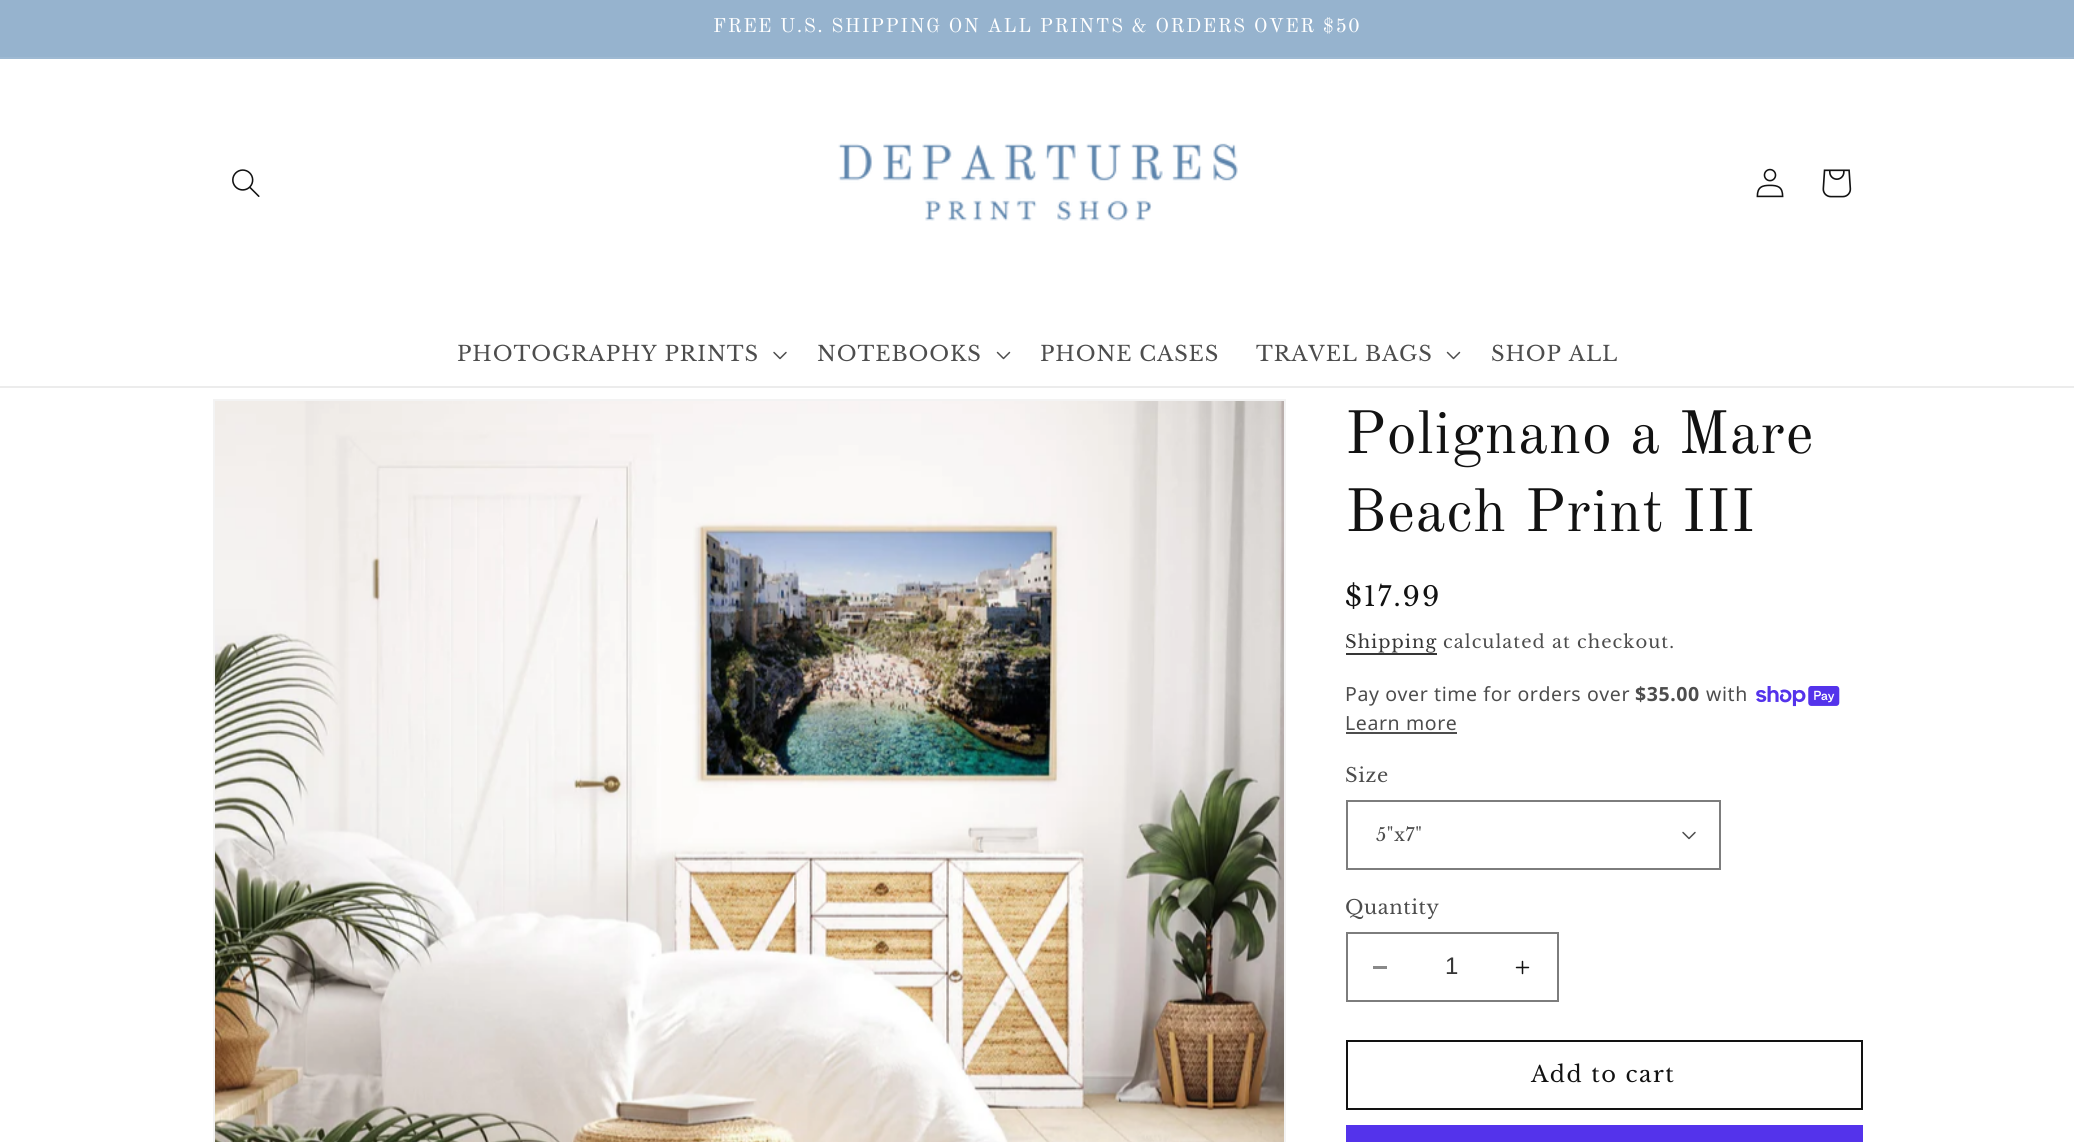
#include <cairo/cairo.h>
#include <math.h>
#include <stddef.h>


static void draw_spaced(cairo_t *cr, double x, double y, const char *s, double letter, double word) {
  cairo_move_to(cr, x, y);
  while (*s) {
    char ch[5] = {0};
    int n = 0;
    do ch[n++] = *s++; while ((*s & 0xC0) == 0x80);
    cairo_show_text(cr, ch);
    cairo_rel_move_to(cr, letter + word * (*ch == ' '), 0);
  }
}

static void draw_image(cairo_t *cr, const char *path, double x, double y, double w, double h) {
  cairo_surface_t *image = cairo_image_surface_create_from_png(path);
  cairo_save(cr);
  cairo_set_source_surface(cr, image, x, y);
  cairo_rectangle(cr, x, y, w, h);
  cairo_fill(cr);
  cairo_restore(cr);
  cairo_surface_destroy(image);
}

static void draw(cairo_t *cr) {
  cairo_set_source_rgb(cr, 1, 1, 1);
  cairo_paint(cr);
  cairo_set_source_rgb(cr, 150 / 255.0, 179 / 255.0, 206 / 255.0);
  cairo_rectangle(cr, 0, 0, 2074, 57);
  cairo_fill(cr);
  cairo_set_source_rgb(cr, 158 / 255.0, 185 / 255.0, 210 / 255.0);
  cairo_rectangle(cr, 0, 57, 2074, 2);
  cairo_fill(cr);
  cairo_set_source_rgb(cr, 236 / 255.0, 236 / 255.0, 236 / 255.0);
  cairo_rectangle(cr, 0, 386, 2074, 2);
  cairo_fill(cr);
  draw_image(cr, "images/1.png", 232, 169, 28, 28);
  draw_image(cr, "images/2.png", 838, 143, 400, 78);
  draw_image(cr, "images/3.png", 1756, 168, 28, 30);
  draw_image(cr, "images/4.png", 1822, 169, 30, 29);
  draw_image(cr, "images/5.png", 773, 351, 14, 9);
  draw_image(cr, "images/6.png", 996, 351, 15, 9);
  draw_image(cr, "images/6.png", 1446, 351, 15, 9);
  cairo_rectangle(cr, 214, 400, 1071, 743);
  cairo_set_source_rgb(cr, 243 / 255.0, 243 / 255.0, 243 / 255.0);
  cairo_stroke(cr);
  draw_image(cr, "images/7.png", 215, 401, 1069, 741);
  cairo_set_source_rgb(cr, 54 / 255.0, 54 / 255.0, 54 / 255.0);
  cairo_rectangle(cr, 1346, 653, 91, 2);
  cairo_fill(cr);
  draw_image(cr, "images/8.png", 1756, 686, 84, 21);
  cairo_set_source_rgb(cr, 77 / 255.0, 77 / 255.0, 77 / 255.0);
  cairo_rectangle(cr, 1346, 732, 111, 2);
  cairo_fill(cr);
  draw_image(cr, "images/5.png", 1682, 831, 14, 9);
  cairo_rectangle(cr, 1347, 801, 373, 68);
  cairo_set_source_rgb(cr, 125 / 255.0, 125 / 255.0, 125 / 255.0);
  cairo_stroke(cr);
  cairo_set_source_rgb(cr, 137 / 255.0, 137 / 255.0, 137 / 255.0);
  cairo_rectangle(cr, 1373, 966, 14, 3);
  cairo_fill(cr);
  draw_image(cr, "images/9.png", 1515, 960, 15, 15);
  cairo_rectangle(cr, 1347, 933, 211, 68);
  cairo_set_source_rgb(cr, 125 / 255.0, 125 / 255.0, 125 / 255.0);
  cairo_stroke(cr);
  cairo_rectangle(cr, 1347, 1041, 515, 68);
  cairo_set_source_rgb(cr, 18 / 255.0, 18 / 255.0, 18 / 255.0);
  cairo_stroke(cr);
  cairo_set_source_rgb(cr, 84 / 255.0, 51 / 255.0, 235 / 255.0);
  cairo_rectangle(cr, 1346, 1125, 517, 17);
  cairo_fill(cr);
  cairo_select_font_face(cr, "Old Standard TT", CAIRO_FONT_SLANT_NORMAL, CAIRO_FONT_WEIGHT_NORMAL);
  cairo_set_font_size(cr, 19.5);
  cairo_set_source_rgb(cr, 1, 1, 1);
  draw_spaced(cr, 713, 32, "FREE U.S. SHIPPING ON ALL PRINTS & ORDERS OVER $50", 1.5, 0);
  cairo_select_font_face(cr, "Libre Baskerville", CAIRO_FONT_SLANT_NORMAL, CAIRO_FONT_WEIGHT_NORMAL);
  cairo_set_font_size(cr, 21);
  cairo_set_source_rgb(cr, 77 / 255.0, 77 / 255.0, 77 / 255.0);
  draw_spaced(cr, 457, 361, "PHOTOGRAPHY PRINTS", 0.9, 0);
  draw_spaced(cr, 817, 361, "NOTEBOOKS", 0.9, 0);
  draw_spaced(cr, 1040, 361, "PHONE CASES", 0.9, 0);
  draw_spaced(cr, 1256, 361, "TRAVEL BAGS", 0.9, 0);
  draw_spaced(cr, 1491, 361, "SHOP ALL", 0.9, 0);
  cairo_select_font_face(cr, "Old Standard TT", CAIRO_FONT_SLANT_NORMAL, CAIRO_FONT_WEIGHT_NORMAL);
  cairo_set_font_size(cr, 60);
  cairo_set_source_rgb(cr, 18 / 255.0, 18 / 255.0, 18 / 255.0);
  draw_spaced(cr, 1345, 453, "Polignano a Mare", 0.9, 0);
  draw_spaced(cr, 1345, 531, "Beach Print III", 0.9, 0);
  cairo_select_font_face(cr, "Libre Baskerville", CAIRO_FONT_SLANT_NORMAL, CAIRO_FONT_WEIGHT_NORMAL);
  cairo_set_font_size(cr, 27);
  draw_spaced(cr, 1345, 606, "$17.99", 2, 0);
  cairo_set_font_size(cr, 18);
  cairo_set_source_rgb(cr, 54 / 255.0, 54 / 255.0, 54 / 255.0);
  draw_spaced(cr, 1345, 648, "Shipping", 1.05, 0);
  cairo_set_source_rgb(cr, 77 / 255.0, 77 / 255.0, 77 / 255.0);
  draw_spaced(cr, 1443, 648, "calculated at checkout.", 1.05, 0);
  cairo_select_font_face(cr, "Noto Sans", CAIRO_FONT_SLANT_NORMAL, CAIRO_FONT_WEIGHT_NORMAL);
  cairo_set_font_size(cr, 19.5);
  draw_spaced(cr, 1345, 701, "Pay over time for orders over", 0.6, 0);
  cairo_select_font_face(cr, "Noto Sans", CAIRO_FONT_SLANT_NORMAL, CAIRO_FONT_WEIGHT_BOLD);
  draw_spaced(cr, 1635, 701, "$35.00", 0.6, 0);
  cairo_select_font_face(cr, "Noto Sans", CAIRO_FONT_SLANT_NORMAL, CAIRO_FONT_WEIGHT_NORMAL);
  draw_spaced(cr, 1706, 701, "with", 0.6, 0);
  draw_spaced(cr, 1345, 730, "Learn more", 0.6, 0);
  cairo_select_font_face(cr, "Libre Baskerville", CAIRO_FONT_SLANT_NORMAL, CAIRO_FONT_WEIGHT_NORMAL);
  draw_spaced(cr, 1345, 782, "Size", 0.6, 0);
  cairo_set_font_size(cr, 18);
  draw_spaced(cr, 1376, 841, "5\"x7\"", 0.6, 0);
  cairo_set_font_size(cr, 19.5);
  draw_spaced(cr, 1345, 914, "Quantity", 0.6, 0);
  cairo_select_font_face(cr, "Liberation Sans", CAIRO_FONT_SLANT_NORMAL, CAIRO_FONT_WEIGHT_NORMAL);
  cairo_set_font_size(cr, 24);
  cairo_set_source_rgb(cr, 54 / 255.0, 54 / 255.0, 54 / 255.0);
  cairo_move_to(cr, 1445, 974);
  cairo_show_text(cr, "1");
  cairo_select_font_face(cr, "Libre Baskerville", CAIRO_FONT_SLANT_NORMAL, CAIRO_FONT_WEIGHT_NORMAL);
  cairo_set_font_size(cr, 22.5);
  cairo_set_source_rgb(cr, 18 / 255.0, 18 / 255.0, 18 / 255.0);
  draw_spaced(cr, 1531, 1082, "Add to cart", 1.5, 0);
}

int main(void) {
  cairo_surface_t *surface = cairo_image_surface_create(CAIRO_FORMAT_RGB24, 2074, 1142);
  cairo_t *cr = cairo_create(surface);
  cairo_font_options_t *options = cairo_font_options_create();
  cairo_font_options_set_hint_metrics(options, CAIRO_HINT_METRICS_OFF);
  cairo_font_options_set_hint_style(options, CAIRO_HINT_STYLE_NONE);
  cairo_set_font_options(cr, options);
  cairo_set_miter_limit(cr, 4);
  draw(cr);
  cairo_surface_write_to_png(surface, "out.png");
  cairo_font_options_destroy(options);
  cairo_destroy(cr);
  cairo_surface_destroy(surface);
  return 0;
}
